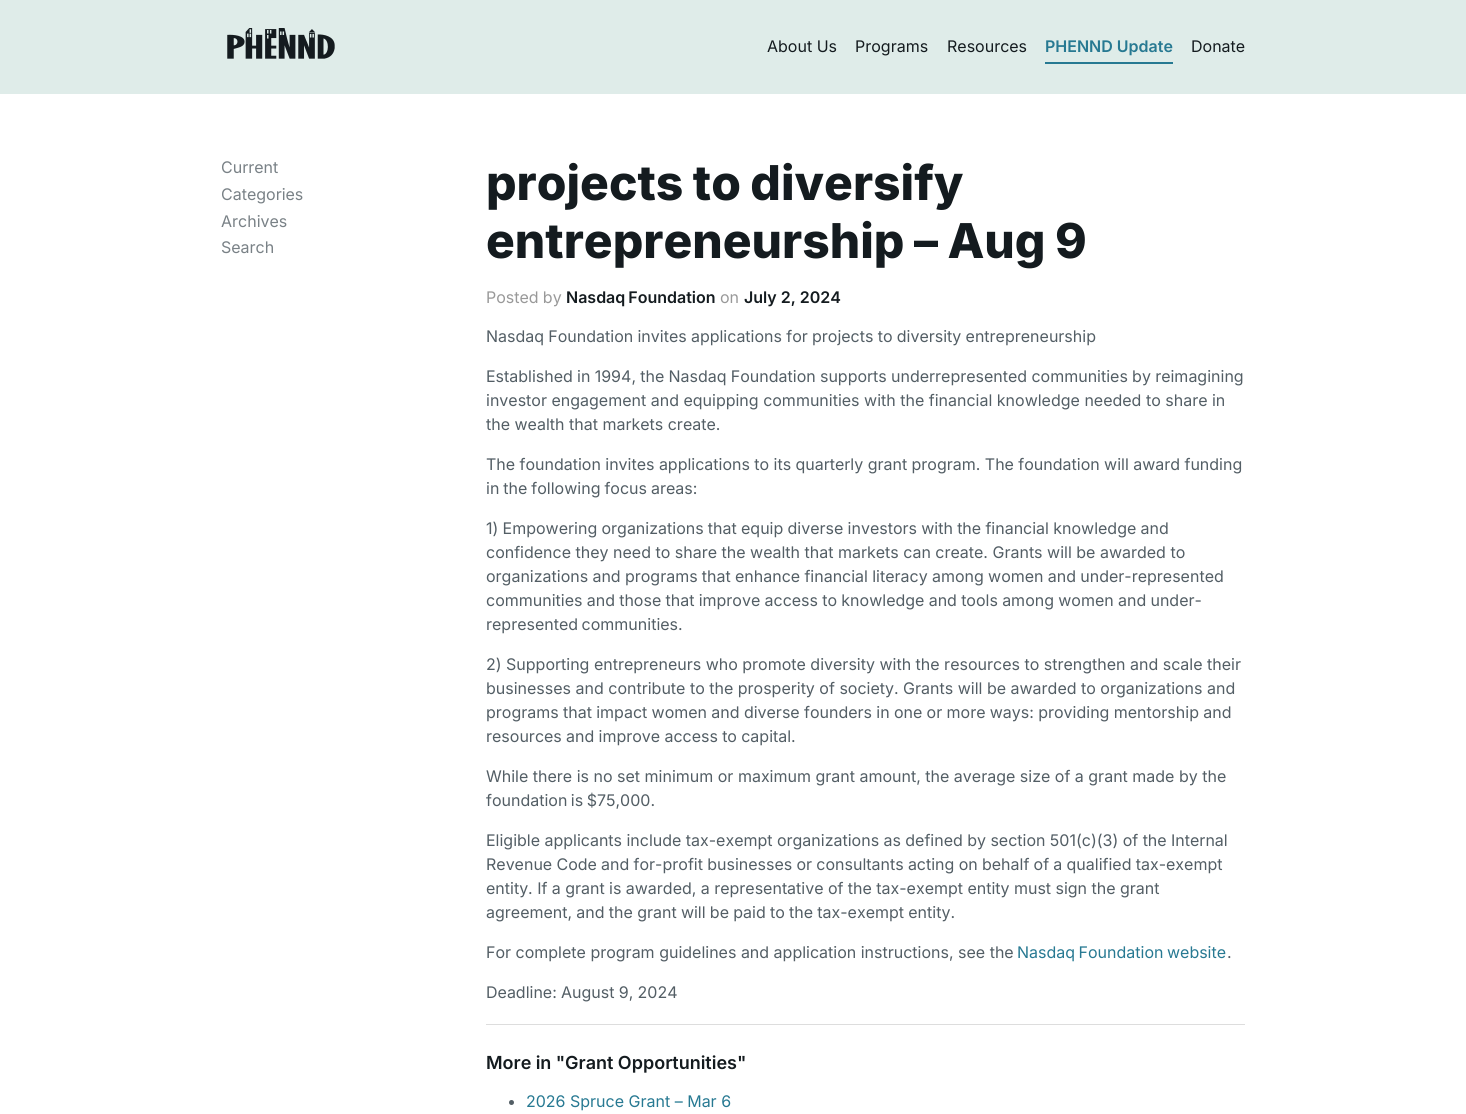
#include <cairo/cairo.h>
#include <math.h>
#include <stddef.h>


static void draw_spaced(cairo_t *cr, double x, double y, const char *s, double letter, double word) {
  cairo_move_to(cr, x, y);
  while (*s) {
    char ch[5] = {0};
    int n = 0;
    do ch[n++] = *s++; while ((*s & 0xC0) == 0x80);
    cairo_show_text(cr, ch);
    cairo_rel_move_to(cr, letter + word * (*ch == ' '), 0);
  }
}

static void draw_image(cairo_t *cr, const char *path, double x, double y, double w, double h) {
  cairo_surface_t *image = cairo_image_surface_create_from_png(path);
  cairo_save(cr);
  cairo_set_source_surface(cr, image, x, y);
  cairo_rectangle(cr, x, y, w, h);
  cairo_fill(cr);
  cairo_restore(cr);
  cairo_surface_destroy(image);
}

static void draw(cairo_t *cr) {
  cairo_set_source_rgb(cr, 1, 1, 1);
  cairo_paint(cr);
  cairo_set_source_rgb(cr, 223 / 255.0, 236 / 255.0, 233 / 255.0);
  cairo_rectangle(cr, 0, 0, 1466, 94);
  cairo_fill(cr);
  draw_image(cr, "images/1.png", 227, 28, 108, 31);
  cairo_set_source_rgb(cr, 39 / 255.0, 121 / 255.0, 146 / 255.0);
  cairo_rectangle(cr, 1045, 62, 128, 2);
  cairo_fill(cr);
  cairo_set_source_rgb(cr, 221 / 255.0, 221 / 255.0, 221 / 255.0);
  cairo_rectangle(cr, 486, 1024, 759, 1);
  cairo_fill(cr);
  cairo_set_source_rgb(cr, 83 / 255.0, 94 / 255.0, 101 / 255.0);
  cairo_arc(cr, 511.5, 1102.5, 2.5, 0, 2 * M_PI);
  cairo_fill(cr);
  cairo_select_font_face(cr, "Inter", CAIRO_FONT_SLANT_NORMAL, CAIRO_FONT_WEIGHT_NORMAL);
  cairo_set_font_size(cr, 16);
  cairo_set_source_rgb(cr, 20 / 255.0, 27 / 255.0, 31 / 255.0);
  cairo_move_to(cr, 767, 52);
  cairo_show_text(cr, "About Us");
  cairo_move_to(cr, 855, 52);
  cairo_show_text(cr, "Programs");
  cairo_move_to(cr, 947, 52);
  cairo_show_text(cr, "Resources");
  cairo_select_font_face(cr, "Inter SemiBold", CAIRO_FONT_SLANT_NORMAL, CAIRO_FONT_WEIGHT_NORMAL);
  cairo_set_source_rgb(cr, 39 / 255.0, 121 / 255.0, 146 / 255.0);
  cairo_move_to(cr, 1045, 52);
  cairo_show_text(cr, "PHENND Update");
  cairo_select_font_face(cr, "Inter", CAIRO_FONT_SLANT_NORMAL, CAIRO_FONT_WEIGHT_NORMAL);
  cairo_set_source_rgb(cr, 20 / 255.0, 27 / 255.0, 31 / 255.0);
  cairo_move_to(cr, 1191, 52);
  cairo_show_text(cr, "Donate");
  cairo_set_source_rgb(cr, 121 / 255.0, 129 / 255.0, 134 / 255.0);
  cairo_move_to(cr, 221, 173);
  cairo_show_text(cr, "Current");
  cairo_move_to(cr, 221, 200);
  cairo_show_text(cr, "Categories");
  cairo_move_to(cr, 221, 227);
  cairo_show_text(cr, "Archives");
  cairo_move_to(cr, 221, 253);
  cairo_show_text(cr, "Search");
  cairo_select_font_face(cr, "Inter ExtraBold", CAIRO_FONT_SLANT_NORMAL, CAIRO_FONT_WEIGHT_NORMAL);
  cairo_set_font_size(cr, 48);
  cairo_set_source_rgb(cr, 20 / 255.0, 27 / 255.0, 31 / 255.0);
  draw_spaced(cr, 486, 200, "projects to diversify", 0, -1);
  draw_spaced(cr, 486, 258, "entrepreneurship – Aug 9", 0, -1);
  cairo_select_font_face(cr, "Inter", CAIRO_FONT_SLANT_NORMAL, CAIRO_FONT_WEIGHT_NORMAL);
  cairo_set_font_size(cr, 16);
  cairo_set_source_rgb(cr, 153 / 255.0, 153 / 255.0, 153 / 255.0);
  draw_spaced(cr, 486, 303, "Posted by", 0, -0.25);
  cairo_select_font_face(cr, "Inter SemiBold", CAIRO_FONT_SLANT_NORMAL, CAIRO_FONT_WEIGHT_NORMAL);
  cairo_set_source_rgb(cr, 20 / 255.0, 27 / 255.0, 31 / 255.0);
  draw_spaced(cr, 566, 303, "Nasdaq Foundation", 0, -1);
  cairo_select_font_face(cr, "Inter", CAIRO_FONT_SLANT_NORMAL, CAIRO_FONT_WEIGHT_NORMAL);
  cairo_set_source_rgb(cr, 153 / 255.0, 153 / 255.0, 153 / 255.0);
  cairo_move_to(cr, 720, 303);
  cairo_show_text(cr, "on");
  cairo_select_font_face(cr, "Inter SemiBold", CAIRO_FONT_SLANT_NORMAL, CAIRO_FONT_WEIGHT_NORMAL);
  cairo_set_source_rgb(cr, 20 / 255.0, 27 / 255.0, 31 / 255.0);
  cairo_move_to(cr, 744, 303);
  cairo_show_text(cr, "July 2, 2024");
  cairo_select_font_face(cr, "Inter", CAIRO_FONT_SLANT_NORMAL, CAIRO_FONT_WEIGHT_NORMAL);
  cairo_set_source_rgb(cr, 83 / 255.0, 94 / 255.0, 101 / 255.0);
  draw_spaced(cr, 486, 342, "Nasdaq Foundation invites applications for projects to diversity entrepreneurship", 0, -0.25);
  draw_spaced(cr, 486, 382, "Established in 1994, the Nasdaq Foundation supports underrepresented communities by reimagining", 0, -0.25);
  cairo_move_to(cr, 486, 406);
  cairo_show_text(cr, "investor engagement and equipping communities with the financial knowledge needed to share in");
  cairo_move_to(cr, 486, 430);
  cairo_show_text(cr, "the wealth that markets create.");
  draw_spaced(cr, 486, 470, "The foundation invites applications to its quarterly grant program. The foundation will award funding", 0, -0.1);
  draw_spaced(cr, 486, 494, "in the following focus areas:", 0, -0.5);
  draw_spaced(cr, 486, 534, "1) Empowering organizations that equip diverse investors with the financial knowledge and", 0, -0.25);
  cairo_move_to(cr, 486, 558);
  cairo_show_text(cr, "confidence they need to share the wealth that markets can create. Grants will be awarded to");
  draw_spaced(cr, 486, 582, "organizations and programs that enhance financial literacy among women and under-represented", 0, -0.25);
  draw_spaced(cr, 486, 606, "communities and those that improve access to knowledge and tools among women and under-", 0, -0.25);
  draw_spaced(cr, 486, 630, "represented communities.", 0, -1);
  cairo_move_to(cr, 486, 670);
  cairo_show_text(cr, "2) Supporting entrepreneurs who promote diversity with the resources to strengthen and scale their");
  cairo_move_to(cr, 486, 694);
  cairo_show_text(cr, "businesses and contribute to the prosperity of society. Grants will be awarded to organizations and");
  draw_spaced(cr, 486, 718, "programs that impact women and diverse founders in one or more ways: providing mentorship and", 0, -0.2);
  draw_spaced(cr, 486, 742, "resources and improve access to capital.", 0, -0.25);
  cairo_move_to(cr, 486, 782);
  cairo_show_text(cr, "While there is no set minimum or maximum grant amount, the average size of a grant made by the");
  draw_spaced(cr, 486, 806, "foundation is $75,000.", 0, -1);
  draw_spaced(cr, 486, 846, "Eligible applicants include tax-exempt organizations as defined by section 501(c)(3) of the Internal", 0, -0.1);
  draw_spaced(cr, 486, 870, "Revenue Code and for-profit businesses or consultants acting on behalf of a qualified tax-exempt", 0, -0.25);
  draw_spaced(cr, 486, 894, "entity. If a grant is awarded, a representative of the tax-exempt entity must sign the grant", 0, -0.1);
  draw_spaced(cr, 486, 918, "agreement, and the grant will be paid to the tax-exempt entity.", 0, -0.25);
  cairo_move_to(cr, 486, 958);
  cairo_show_text(cr, "For complete program guidelines and application instructions, see the");
  cairo_set_source_rgb(cr, 39 / 255.0, 121 / 255.0, 146 / 255.0);
  draw_spaced(cr, 1017, 958, "Nasdaq Foundation website", 0, -1);
  cairo_set_source_rgb(cr, 83 / 255.0, 94 / 255.0, 101 / 255.0);
  cairo_move_to(cr, 1227, 958);
  cairo_show_text(cr, ".");
  draw_spaced(cr, 486, 998, "Deadline: August 9, 2024", 0, -0.25);
  cairo_select_font_face(cr, "Inter SemiBold", CAIRO_FONT_SLANT_NORMAL, CAIRO_FONT_WEIGHT_NORMAL);
  cairo_set_font_size(cr, 18);
  cairo_set_source_rgb(cr, 20 / 255.0, 27 / 255.0, 31 / 255.0);
  draw_spaced(cr, 486, 1069, "More in \"", 0, -0.25);
  cairo_move_to(cr, 565, 1069);
  cairo_show_text(cr, "Grant Opportunities\"");
  cairo_select_font_face(cr, "Inter", CAIRO_FONT_SLANT_NORMAL, CAIRO_FONT_WEIGHT_NORMAL);
  cairo_set_font_size(cr, 16);
  cairo_set_source_rgb(cr, 39 / 255.0, 121 / 255.0, 146 / 255.0);
  cairo_move_to(cr, 526, 1107);
  cairo_show_text(cr, "2026 Spruce Grant – Mar 6");
}

int main(void) {
  cairo_surface_t *surface = cairo_image_surface_create(CAIRO_FORMAT_RGB24, 1466, 1114);
  cairo_t *cr = cairo_create(surface);
  cairo_font_options_t *options = cairo_font_options_create();
  cairo_font_options_set_hint_metrics(options, CAIRO_HINT_METRICS_OFF);
  cairo_font_options_set_hint_style(options, CAIRO_HINT_STYLE_NONE);
  cairo_set_font_options(cr, options);
  cairo_set_miter_limit(cr, 4);
  draw(cr);
  cairo_surface_write_to_png(surface, "out.png");
  cairo_font_options_destroy(options);
  cairo_destroy(cr);
  cairo_surface_destroy(surface);
  return 0;
}
